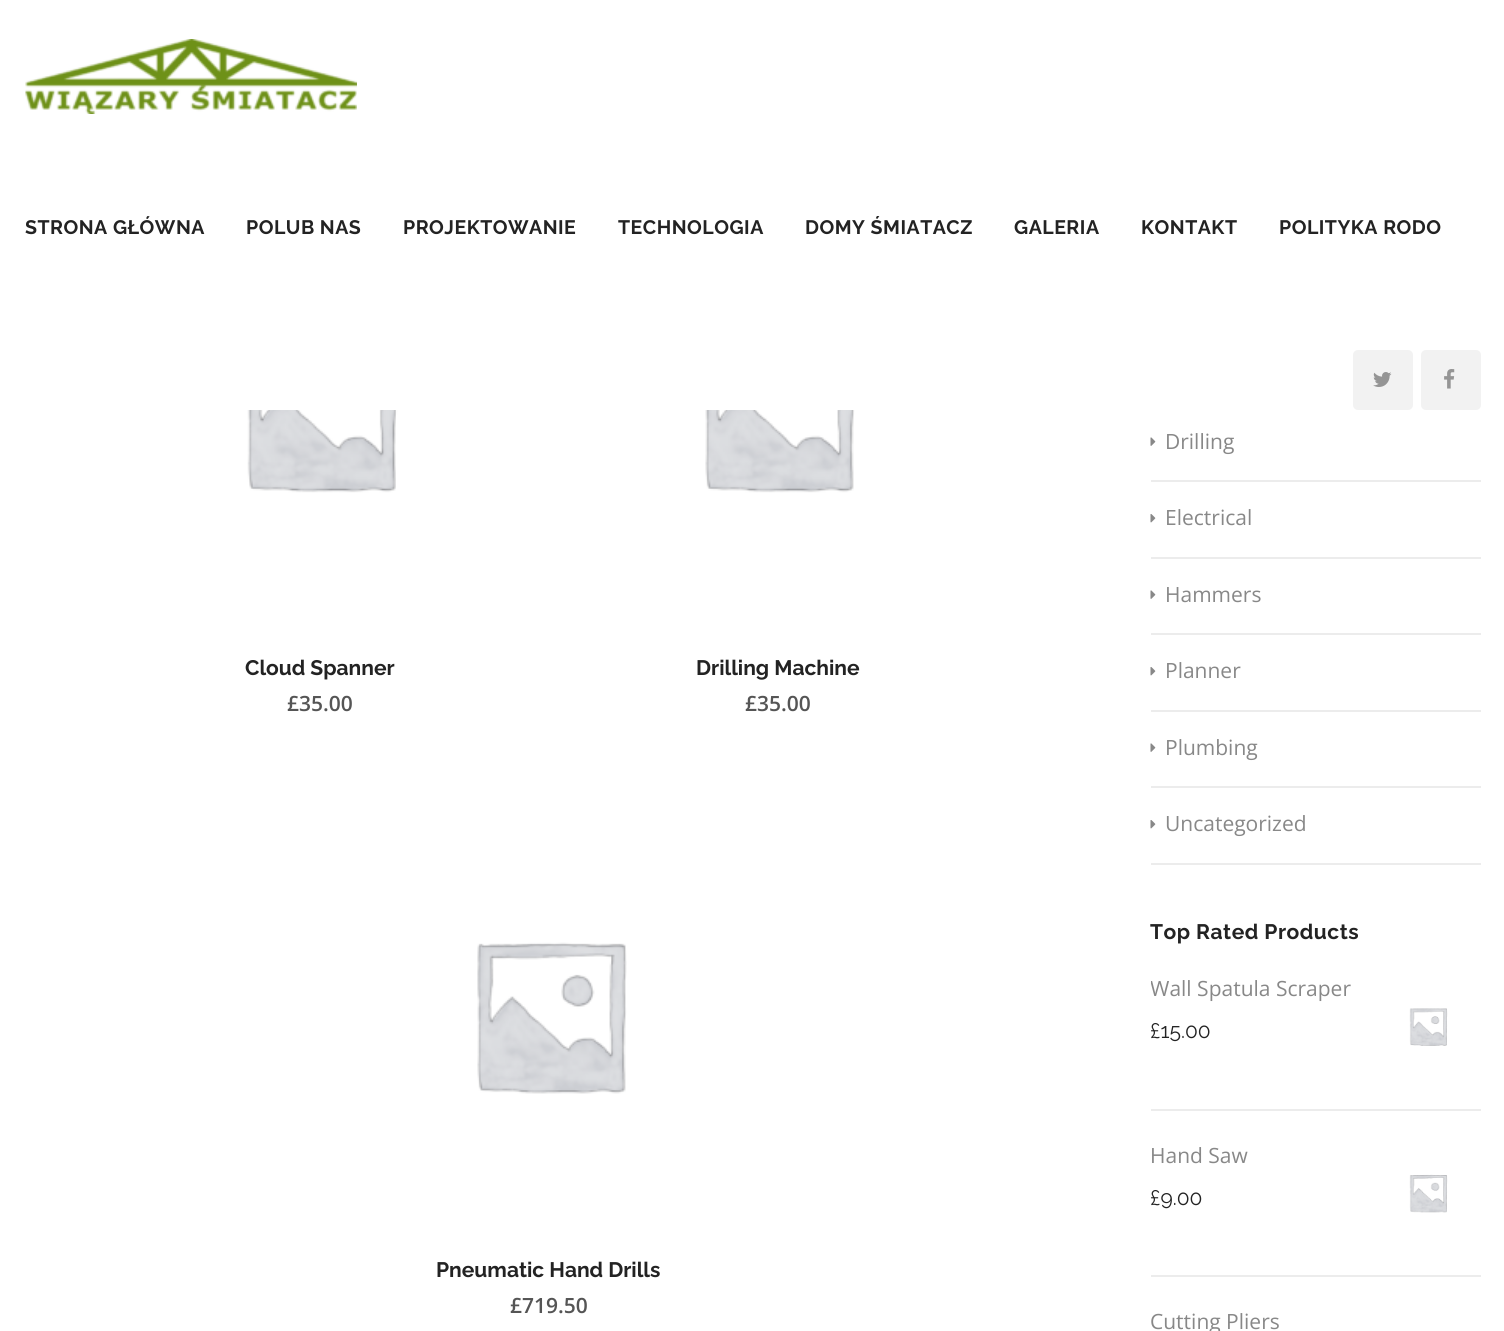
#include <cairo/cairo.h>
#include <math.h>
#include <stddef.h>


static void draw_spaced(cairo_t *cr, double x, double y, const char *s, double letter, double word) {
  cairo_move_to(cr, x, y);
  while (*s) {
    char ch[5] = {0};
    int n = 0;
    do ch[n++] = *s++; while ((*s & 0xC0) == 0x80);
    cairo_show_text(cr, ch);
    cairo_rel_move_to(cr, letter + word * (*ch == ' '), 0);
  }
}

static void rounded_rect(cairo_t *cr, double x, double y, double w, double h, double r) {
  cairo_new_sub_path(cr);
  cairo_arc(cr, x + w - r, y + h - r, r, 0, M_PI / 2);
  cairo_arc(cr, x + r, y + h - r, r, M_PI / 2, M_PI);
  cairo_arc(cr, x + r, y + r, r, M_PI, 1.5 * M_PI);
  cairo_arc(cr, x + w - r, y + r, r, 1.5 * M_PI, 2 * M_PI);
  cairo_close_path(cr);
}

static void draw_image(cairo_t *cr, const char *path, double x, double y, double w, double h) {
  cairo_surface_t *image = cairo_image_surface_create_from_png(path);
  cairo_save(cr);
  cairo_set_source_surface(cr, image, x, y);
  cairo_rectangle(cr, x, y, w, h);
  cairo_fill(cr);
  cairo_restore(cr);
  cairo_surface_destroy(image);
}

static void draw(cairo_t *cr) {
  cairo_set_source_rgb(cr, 1, 1, 1);
  cairo_paint(cr);
  draw_image(cr, "images/1.png", 25, 39, 332, 75);
  cairo_set_source_rgb(cr, 242 / 255.0, 242 / 255.0, 242 / 255.0);
  rounded_rect(cr, 1353, 350, 60, 60, 5);
  cairo_fill(cr);
  draw_image(cr, "images/2.png", 1373, 372, 19, 15);
  rounded_rect(cr, 1421, 350, 60, 60, 5);
  cairo_fill(cr);
  draw_image(cr, "images/3.png", 1444, 369, 11, 20);
  draw_image(cr, "images/4.png", 247, 410, 151, 83);
  draw_image(cr, "images/5.png", 705, 410, 150, 83);
  draw_image(cr, "images/6.png", 477, 942, 150, 152);
  cairo_set_source_rgb(cr, 236 / 255.0, 236 / 255.0, 236 / 255.0);
  cairo_rectangle(cr, 1151, 480, 330, 2);
  cairo_fill(cr);
  draw_image(cr, "images/7.png", 1150, 437, 6, 9);
  cairo_rectangle(cr, 1151, 557, 330, 2);
  cairo_fill(cr);
  draw_image(cr, "images/8.png", 1150, 514, 6, 9);
  cairo_rectangle(cr, 1151, 633, 330, 2);
  cairo_fill(cr);
  draw_image(cr, "images/7.png", 1150, 590, 6, 9);
  cairo_rectangle(cr, 1151, 710, 330, 2);
  cairo_fill(cr);
  draw_image(cr, "images/8.png", 1150, 667, 6, 9);
  cairo_rectangle(cr, 1151, 786, 330, 2);
  cairo_fill(cr);
  draw_image(cr, "images/7.png", 1150, 743, 6, 9);
  cairo_rectangle(cr, 1151, 863, 330, 2);
  cairo_fill(cr);
  draw_image(cr, "images/8.png", 1150, 820, 6, 9);
  cairo_rectangle(cr, 1151, 1109, 330, 2);
  cairo_fill(cr);
  draw_image(cr, "images/9.png", 1409, 1008, 39, 38);
  cairo_rectangle(cr, 1151, 1275, 330, 2);
  cairo_fill(cr);
  draw_image(cr, "images/10.png", 1409, 1174, 39, 39);
  cairo_select_font_face(cr, "Raleway", CAIRO_FONT_SLANT_NORMAL, CAIRO_FONT_WEIGHT_BOLD);
  cairo_set_font_size(cr, 19.5);
  cairo_set_source_rgb(cr, 35 / 255.0, 35 / 255.0, 35 / 255.0);
  draw_spaced(cr, 25, 234, "STRONA GŁÓWNA", 0.5, 0);
  draw_spaced(cr, 246, 234, "POLUB NAS", 0.5, 0);
  draw_spaced(cr, 403, 234, "PROJEKTOWANIE", 0.5, 0);
  draw_spaced(cr, 618, 234, "TECHNOLOGIA", 0.5, 0);
  draw_spaced(cr, 805, 234, "DOMY ŚMIATACZ", 0.5, 0);
  draw_spaced(cr, 1014, 234, "GALERIA", 0.5, 0);
  draw_spaced(cr, 1141, 234, "KONTAKT", 0.5, 0);
  draw_spaced(cr, 1279, 234, "POLITYKA RODO", 0.5, 0);
  cairo_set_font_size(cr, 21);
  cairo_move_to(cr, 245, 675);
  cairo_show_text(cr, "Cloud Spanner");
  cairo_select_font_face(cr, "Open Sans SemiBold", CAIRO_FONT_SLANT_NORMAL, CAIRO_FONT_WEIGHT_NORMAL);
  cairo_set_source_rgb(cr, 85 / 255.0, 85 / 255.0, 85 / 255.0);
  cairo_move_to(cr, 287, 711);
  cairo_show_text(cr, "£35.00");
  cairo_select_font_face(cr, "Raleway", CAIRO_FONT_SLANT_NORMAL, CAIRO_FONT_WEIGHT_BOLD);
  cairo_set_source_rgb(cr, 35 / 255.0, 35 / 255.0, 35 / 255.0);
  cairo_move_to(cr, 696, 675);
  cairo_show_text(cr, "Drilling Machine");
  cairo_select_font_face(cr, "Open Sans SemiBold", CAIRO_FONT_SLANT_NORMAL, CAIRO_FONT_WEIGHT_NORMAL);
  cairo_set_source_rgb(cr, 85 / 255.0, 85 / 255.0, 85 / 255.0);
  cairo_move_to(cr, 745, 711);
  cairo_show_text(cr, "£35.00");
  cairo_select_font_face(cr, "Raleway", CAIRO_FONT_SLANT_NORMAL, CAIRO_FONT_WEIGHT_BOLD);
  cairo_set_source_rgb(cr, 35 / 255.0, 35 / 255.0, 35 / 255.0);
  cairo_move_to(cr, 436, 1277);
  cairo_show_text(cr, "Pneumatic Hand Drills");
  cairo_select_font_face(cr, "Open Sans SemiBold", CAIRO_FONT_SLANT_NORMAL, CAIRO_FONT_WEIGHT_NORMAL);
  cairo_set_source_rgb(cr, 85 / 255.0, 85 / 255.0, 85 / 255.0);
  cairo_move_to(cr, 510, 1313);
  cairo_show_text(cr, "£719.50");
  cairo_select_font_face(cr, "Open Sans", CAIRO_FONT_SLANT_NORMAL, CAIRO_FONT_WEIGHT_NORMAL);
  cairo_set_source_rgb(cr, 136 / 255.0, 136 / 255.0, 136 / 255.0);
  cairo_move_to(cr, 1165, 449);
  cairo_show_text(cr, "Drilling");
  cairo_move_to(cr, 1165, 525);
  cairo_show_text(cr, "Electrical");
  cairo_move_to(cr, 1165, 602);
  cairo_show_text(cr, "Hammers");
  cairo_move_to(cr, 1165, 678);
  cairo_show_text(cr, "Planner");
  cairo_move_to(cr, 1165, 755);
  cairo_show_text(cr, "Plumbing");
  cairo_move_to(cr, 1165, 831);
  cairo_show_text(cr, "Uncategorized");
  cairo_select_font_face(cr, "Raleway", CAIRO_FONT_SLANT_NORMAL, CAIRO_FONT_WEIGHT_BOLD);
  cairo_set_source_rgb(cr, 35 / 255.0, 35 / 255.0, 35 / 255.0);
  draw_spaced(cr, 1150, 939, "Top Rated Products", 0.5, 0);
  cairo_save(cr);
  cairo_rectangle(cr, 1151, 974, 202, 42);
  cairo_clip(cr);
  cairo_select_font_face(cr, "Open Sans", CAIRO_FONT_SLANT_NORMAL, CAIRO_FONT_WEIGHT_NORMAL);
  cairo_set_source_rgb(cr, 136 / 255.0, 136 / 255.0, 136 / 255.0);
  cairo_move_to(cr, 1150, 996);
  cairo_show_text(cr, "Wall Spatula Scraper");
  cairo_restore(cr);
  cairo_select_font_face(cr, "Raleway", CAIRO_FONT_SLANT_NORMAL, CAIRO_FONT_WEIGHT_NORMAL);
  cairo_move_to(cr, 1150, 1038);
  cairo_show_text(cr, "£15.00");
  cairo_select_font_face(cr, "Open Sans", CAIRO_FONT_SLANT_NORMAL, CAIRO_FONT_WEIGHT_NORMAL);
  cairo_set_source_rgb(cr, 136 / 255.0, 136 / 255.0, 136 / 255.0);
  cairo_move_to(cr, 1150, 1163);
  cairo_show_text(cr, "Hand Saw");
  cairo_select_font_face(cr, "Raleway", CAIRO_FONT_SLANT_NORMAL, CAIRO_FONT_WEIGHT_NORMAL);
  cairo_set_source_rgb(cr, 35 / 255.0, 35 / 255.0, 35 / 255.0);
  cairo_move_to(cr, 1150, 1205);
  cairo_show_text(cr, "£9.00");
  cairo_select_font_face(cr, "Open Sans", CAIRO_FONT_SLANT_NORMAL, CAIRO_FONT_WEIGHT_NORMAL);
  cairo_set_source_rgb(cr, 136 / 255.0, 136 / 255.0, 136 / 255.0);
  cairo_move_to(cr, 1150, 1329);
  cairo_show_text(cr, "Cutting Pliers");
}

int main(void) {
  cairo_surface_t *surface = cairo_image_surface_create(CAIRO_FORMAT_RGB24, 1504, 1331);
  cairo_t *cr = cairo_create(surface);
  cairo_font_options_t *options = cairo_font_options_create();
  cairo_font_options_set_hint_metrics(options, CAIRO_HINT_METRICS_OFF);
  cairo_font_options_set_hint_style(options, CAIRO_HINT_STYLE_NONE);
  cairo_set_font_options(cr, options);
  cairo_set_miter_limit(cr, 4);
  draw(cr);
  cairo_surface_write_to_png(surface, "out.png");
  cairo_font_options_destroy(options);
  cairo_destroy(cr);
  cairo_surface_destroy(surface);
  return 0;
}
